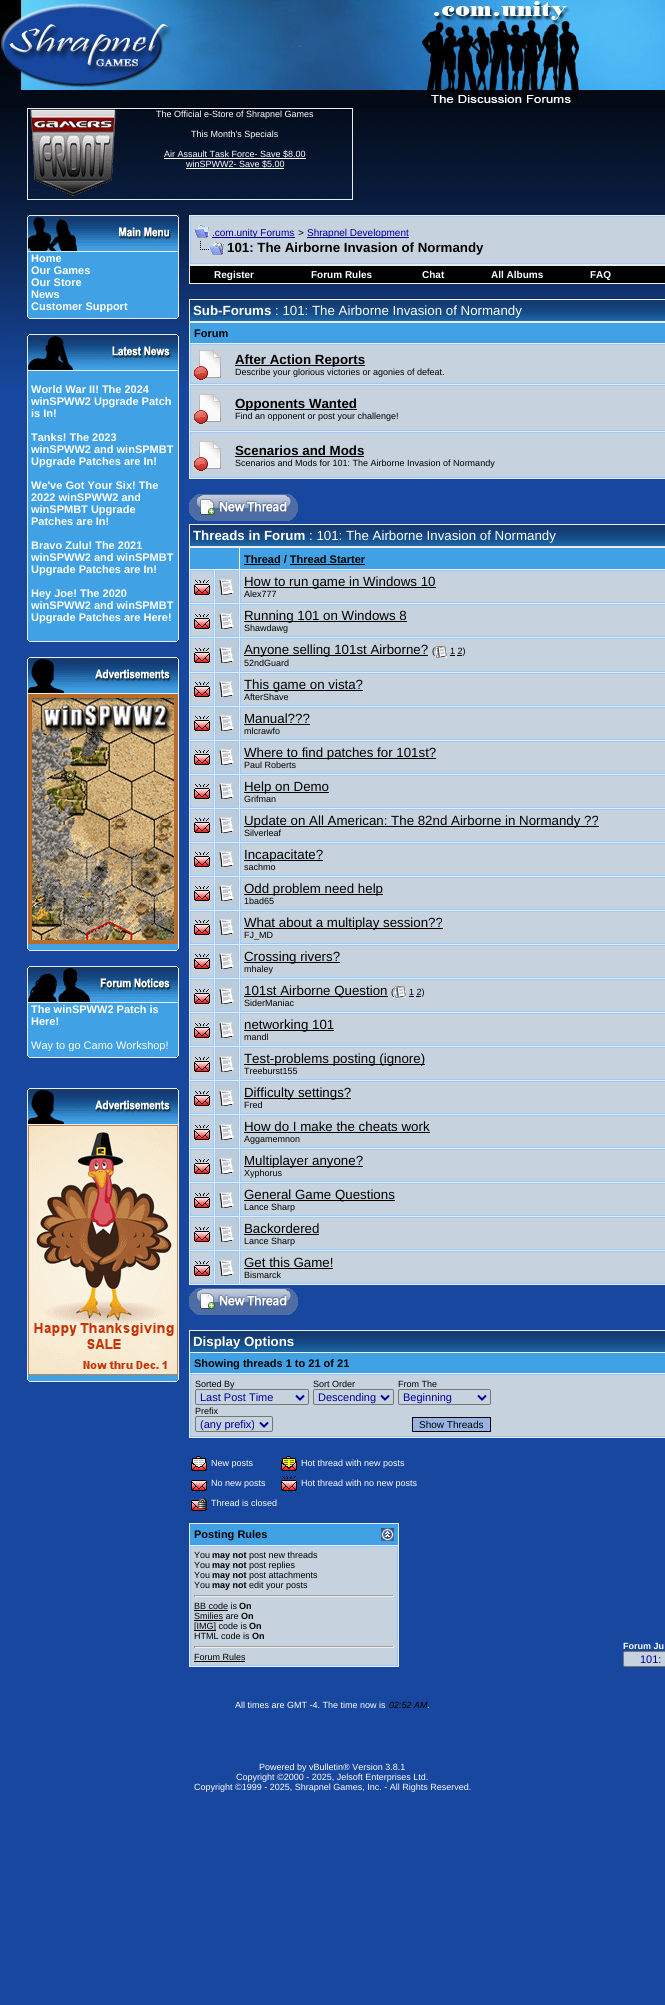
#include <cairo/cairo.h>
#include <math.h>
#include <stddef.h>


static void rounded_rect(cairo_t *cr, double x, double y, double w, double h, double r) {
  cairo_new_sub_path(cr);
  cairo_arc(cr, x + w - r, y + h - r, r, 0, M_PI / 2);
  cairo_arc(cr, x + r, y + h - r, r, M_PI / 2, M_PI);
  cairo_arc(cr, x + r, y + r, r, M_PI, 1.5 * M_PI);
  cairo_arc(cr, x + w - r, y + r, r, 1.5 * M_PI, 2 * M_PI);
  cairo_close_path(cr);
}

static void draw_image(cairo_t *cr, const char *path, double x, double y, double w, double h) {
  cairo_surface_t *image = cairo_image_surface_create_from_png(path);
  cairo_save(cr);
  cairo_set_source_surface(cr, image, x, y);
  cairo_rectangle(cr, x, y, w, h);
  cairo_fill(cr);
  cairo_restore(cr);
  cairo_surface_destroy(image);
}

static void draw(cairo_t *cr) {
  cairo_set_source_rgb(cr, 23 / 255.0, 71 / 255.0, 158 / 255.0);
  cairo_paint(cr);
  draw_image(cr, "images/1.png", 0, 108, 665, 278);
  draw_image(cr, "images/2.png", 0, 0, 665, 108);
  cairo_set_source_rgb(cr, 236 / 255.0, 236 / 255.0, 236 / 255.0);
  cairo_rectangle(cr, 27, 108, 326, 1);
  cairo_fill(cr);
  cairo_rectangle(cr, 27, 199, 91, 1);
  cairo_fill(cr);
  cairo_rectangle(cr, 27, 108, 1, 92);
  cairo_fill(cr);
  draw_image(cr, "images/3.png", 29, 109, 88, 87);
  cairo_rectangle(cr, 352, 108, 1, 92);
  cairo_fill(cr);
  cairo_rectangle(cr, 118, 199, 235, 1);
  cairo_fill(cr);
  cairo_set_source_rgb(cr, 1, 1, 1);
  cairo_rectangle(cr, 164, 158, 142, 1);
  cairo_fill(cr);
  cairo_rectangle(cr, 186, 168, 98, 1);
  cairo_fill(cr);
  draw_image(cr, "images/4.png", 27, 215, 152, 37);
  cairo_set_source_rgb(cr, 64 / 255.0, 162 / 255.0, 229 / 255.0);
  cairo_rectangle(cr, 28, 252, 150, 60);
  cairo_fill(cr);
  cairo_set_source_rgb(cr, 236 / 255.0, 236 / 255.0, 236 / 255.0);
  cairo_rectangle(cr, 178, 252, 1, 60);
  cairo_fill(cr);
  cairo_rectangle(cr, 27, 252, 1, 60);
  cairo_fill(cr);
  draw_image(cr, "images/6.png", 27, 334, 152, 37);
  cairo_set_source_rgb(cr, 64 / 255.0, 162 / 255.0, 229 / 255.0);
  cairo_rectangle(cr, 28, 371, 150, 264);
  cairo_fill(cr);
  cairo_set_source_rgb(cr, 236 / 255.0, 236 / 255.0, 236 / 255.0);
  cairo_rectangle(cr, 178, 371, 1, 264);
  cairo_fill(cr);
  cairo_rectangle(cr, 27, 371, 1, 264);
  cairo_fill(cr);
  draw_image(cr, "images/5.png", 27, 635, 152, 7);
  draw_image(cr, "images/7.png", 27, 657, 152, 37);
  cairo_rectangle(cr, 178, 694, 1, 250);
  cairo_fill(cr);
  cairo_rectangle(cr, 27, 694, 1, 250);
  cairo_fill(cr);
  draw_image(cr, "images/8.png", 28, 694, 150, 250);
  draw_image(cr, "images/5.png", 27, 944, 152, 7);
  draw_image(cr, "images/9.png", 27, 966, 152, 37);
  cairo_set_source_rgb(cr, 64 / 255.0, 162 / 255.0, 229 / 255.0);
  cairo_rectangle(cr, 28, 1003, 150, 48);
  cairo_fill(cr);
  cairo_set_source_rgb(cr, 236 / 255.0, 236 / 255.0, 236 / 255.0);
  cairo_rectangle(cr, 178, 1003, 1, 48);
  cairo_fill(cr);
  cairo_rectangle(cr, 27, 1003, 1, 48);
  cairo_fill(cr);
  draw_image(cr, "images/7.png", 27, 1088, 152, 37);
  cairo_rectangle(cr, 178, 1125, 1, 250);
  cairo_fill(cr);
  cairo_rectangle(cr, 27, 1125, 1, 250);
  cairo_fill(cr);
  draw_image(cr, "images/10.png", 28, 1125, 150, 250);
  draw_image(cr, "images/5.png", 27, 1375, 152, 7);
  cairo_rectangle(cr, 189, 215, 476, 69);
  cairo_fill(cr);
  cairo_set_source_rgb(cr, 198 / 255.0, 210 / 255.0, 222 / 255.0);
  cairo_rectangle(cr, 190.5, 216.5, 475, 47);
  cairo_fill_preserve(cr);
  cairo_set_source_rgb(cr, 152 / 255.0, 202 / 255.0, 253 / 255.0);
  cairo_set_line_width(cr, 1);
  cairo_stroke(cr);
  draw_image(cr, "images/11.png", 194, 225, 15, 13);
  cairo_set_source_rgb(cr, 0, 0, 153 / 255.0);
  cairo_rectangle(cr, 212, 237, 83, 1);
  cairo_fill(cr);
  cairo_rectangle(cr, 307, 237, 102, 1);
  cairo_fill(cr);
  draw_image(cr, "images/12.png", 200, 241, 24, 14);
  cairo_set_source_rgb(cr, 0, 0, 0);
  cairo_rectangle(cr, 190, 266, 475, 17);
  cairo_fill(cr);
  cairo_set_source_rgb(cr, 236 / 255.0, 236 / 255.0, 236 / 255.0);
  cairo_rectangle(cr, 189, 299, 476, 180);
  cairo_fill(cr);
  draw_image(cr, "images/13.png", 190, 300, 475, 21);
  cairo_set_source_rgb(cr, 64 / 255.0, 162 / 255.0, 229 / 255.0);
  cairo_rectangle(cr, 190, 323, 475, 20);
  cairo_fill(cr);
  cairo_set_source_rgb(cr, 198 / 255.0, 210 / 255.0, 222 / 255.0);
  cairo_rectangle(cr, 190.5, 344.5, 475, 39);
  cairo_fill_preserve(cr);
  cairo_set_source_rgb(cr, 152 / 255.0, 202 / 255.0, 253 / 255.0);
  cairo_stroke(cr);
  draw_image(cr, "images/14.png", 194, 350, 27, 30);
  cairo_set_source_rgb(cr, 0, 0, 0);
  cairo_rectangle(cr, 235, 365, 130, 1);
  cairo_fill(cr);
  cairo_set_source_rgb(cr, 198 / 255.0, 210 / 255.0, 222 / 255.0);
  cairo_rectangle(cr, 190.5, 385.5, 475, 45);
  cairo_fill_preserve(cr);
  cairo_set_source_rgb(cr, 152 / 255.0, 202 / 255.0, 253 / 255.0);
  cairo_stroke(cr);
  draw_image(cr, "images/14.png", 194, 394, 27, 30);
  cairo_set_source_rgb(cr, 0, 0, 0);
  cairo_rectangle(cr, 235, 409, 122, 1);
  cairo_fill(cr);
  cairo_set_source_rgb(cr, 198 / 255.0, 210 / 255.0, 222 / 255.0);
  cairo_rectangle(cr, 190.5, 432.5, 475, 45);
  cairo_fill_preserve(cr);
  cairo_set_source_rgb(cr, 152 / 255.0, 202 / 255.0, 253 / 255.0);
  cairo_stroke(cr);
  draw_image(cr, "images/14.png", 194, 441, 27, 30);
  cairo_set_source_rgb(cr, 0, 0, 0);
  cairo_rectangle(cr, 235, 456, 129, 1);
  cairo_fill(cr);
  draw_image(cr, "images/15.png", 189, 494, 109, 27);
  cairo_set_source_rgb(cr, 236 / 255.0, 236 / 255.0, 236 / 255.0);
  cairo_rectangle(cr, 189, 524, 476, 761);
  cairo_fill(cr);
  draw_image(cr, "images/13.png", 190, 525, 475, 21);
  cairo_set_source_rgb(cr, 64 / 255.0, 162 / 255.0, 229 / 255.0);
  cairo_rectangle(cr, 190, 548, 49, 21);
  cairo_fill(cr);
  cairo_rectangle(cr, 240, 548, 425, 21);
  cairo_fill(cr);
  cairo_set_source_rgb(cr, 0, 0, 0);
  cairo_rectangle(cr, 244, 564, 36, 1);
  cairo_fill(cr);
  cairo_rectangle(cr, 290, 564, 75, 1);
  cairo_fill(cr);
  cairo_set_source_rgb(cr, 198 / 255.0, 210 / 255.0, 222 / 255.0);
  cairo_rectangle(cr, 190.5, 570.5, 23, 32);
  cairo_fill_preserve(cr);
  cairo_set_source_rgb(cr, 152 / 255.0, 202 / 255.0, 253 / 255.0);
  cairo_stroke(cr);
  draw_image(cr, "images/16.png", 194, 580, 16, 15);
  cairo_set_source_rgb(cr, 186 / 255.0, 203 / 255.0, 220 / 255.0);
  cairo_rectangle(cr, 215.5, 570.5, 23, 32);
  cairo_fill_preserve(cr);
  cairo_set_source_rgb(cr, 152 / 255.0, 202 / 255.0, 253 / 255.0);
  cairo_stroke(cr);
  draw_image(cr, "images/17.png", 219, 579, 15, 16);
  cairo_set_source_rgb(cr, 198 / 255.0, 210 / 255.0, 222 / 255.0);
  cairo_rectangle(cr, 240.5, 570.5, 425, 32);
  cairo_fill_preserve(cr);
  cairo_set_source_rgb(cr, 152 / 255.0, 202 / 255.0, 253 / 255.0);
  cairo_stroke(cr);
  cairo_set_source_rgb(cr, 0, 0, 0);
  cairo_rectangle(cr, 244, 587, 192, 1);
  cairo_fill(cr);
  cairo_set_source_rgb(cr, 198 / 255.0, 210 / 255.0, 222 / 255.0);
  cairo_rectangle(cr, 190.5, 604.5, 23, 32);
  cairo_fill_preserve(cr);
  cairo_set_source_rgb(cr, 152 / 255.0, 202 / 255.0, 253 / 255.0);
  cairo_stroke(cr);
  draw_image(cr, "images/16.png", 194, 614, 16, 15);
  cairo_set_source_rgb(cr, 186 / 255.0, 203 / 255.0, 220 / 255.0);
  cairo_rectangle(cr, 215.5, 604.5, 23, 32);
  cairo_fill_preserve(cr);
  cairo_set_source_rgb(cr, 152 / 255.0, 202 / 255.0, 253 / 255.0);
  cairo_stroke(cr);
  draw_image(cr, "images/17.png", 219, 613, 15, 16);
  cairo_set_source_rgb(cr, 198 / 255.0, 210 / 255.0, 222 / 255.0);
  cairo_rectangle(cr, 240.5, 604.5, 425, 32);
  cairo_fill_preserve(cr);
  cairo_set_source_rgb(cr, 152 / 255.0, 202 / 255.0, 253 / 255.0);
  cairo_stroke(cr);
  cairo_set_source_rgb(cr, 0, 0, 0);
  cairo_rectangle(cr, 244, 621, 163, 1);
  cairo_fill(cr);
  cairo_set_source_rgb(cr, 198 / 255.0, 210 / 255.0, 222 / 255.0);
  cairo_rectangle(cr, 190.5, 638.5, 23, 33);
  cairo_fill_preserve(cr);
  cairo_set_source_rgb(cr, 152 / 255.0, 202 / 255.0, 253 / 255.0);
  cairo_stroke(cr);
  draw_image(cr, "images/16.png", 194, 648, 16, 15);
  cairo_set_source_rgb(cr, 186 / 255.0, 203 / 255.0, 220 / 255.0);
  cairo_rectangle(cr, 215.5, 638.5, 23, 33);
  cairo_fill_preserve(cr);
  cairo_set_source_rgb(cr, 152 / 255.0, 202 / 255.0, 253 / 255.0);
  cairo_stroke(cr);
  draw_image(cr, "images/17.png", 219, 647, 15, 16);
  cairo_set_source_rgb(cr, 198 / 255.0, 210 / 255.0, 222 / 255.0);
  cairo_rectangle(cr, 240.5, 638.5, 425, 33);
  cairo_fill_preserve(cr);
  cairo_set_source_rgb(cr, 152 / 255.0, 202 / 255.0, 253 / 255.0);
  cairo_stroke(cr);
  cairo_set_source_rgb(cr, 0, 0, 0);
  cairo_rectangle(cr, 244, 655, 184, 1);
  cairo_fill(cr);
  draw_image(cr, "images/18.png", 435, 646, 12, 12);
  cairo_rectangle(cr, 450, 655, 5, 1);
  cairo_fill(cr);
  cairo_rectangle(cr, 457, 655, 5, 1);
  cairo_fill(cr);
  cairo_set_source_rgb(cr, 198 / 255.0, 210 / 255.0, 222 / 255.0);
  cairo_rectangle(cr, 190.5, 673.5, 23, 32);
  cairo_fill_preserve(cr);
  cairo_set_source_rgb(cr, 152 / 255.0, 202 / 255.0, 253 / 255.0);
  cairo_stroke(cr);
  draw_image(cr, "images/16.png", 194, 682, 16, 15);
  cairo_set_source_rgb(cr, 186 / 255.0, 203 / 255.0, 220 / 255.0);
  cairo_rectangle(cr, 215.5, 673.5, 23, 32);
  cairo_fill_preserve(cr);
  cairo_set_source_rgb(cr, 152 / 255.0, 202 / 255.0, 253 / 255.0);
  cairo_stroke(cr);
  draw_image(cr, "images/17.png", 219, 681, 15, 16);
  cairo_set_source_rgb(cr, 198 / 255.0, 210 / 255.0, 222 / 255.0);
  cairo_rectangle(cr, 240.5, 673.5, 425, 32);
  cairo_fill_preserve(cr);
  cairo_set_source_rgb(cr, 152 / 255.0, 202 / 255.0, 253 / 255.0);
  cairo_stroke(cr);
  cairo_set_source_rgb(cr, 0, 0, 0);
  cairo_rectangle(cr, 244, 690, 119, 1);
  cairo_fill(cr);
  cairo_set_source_rgb(cr, 198 / 255.0, 210 / 255.0, 222 / 255.0);
  cairo_rectangle(cr, 190.5, 707.5, 23, 32);
  cairo_fill_preserve(cr);
  cairo_set_source_rgb(cr, 152 / 255.0, 202 / 255.0, 253 / 255.0);
  cairo_stroke(cr);
  draw_image(cr, "images/16.png", 194, 716, 16, 15);
  cairo_set_source_rgb(cr, 186 / 255.0, 203 / 255.0, 220 / 255.0);
  cairo_rectangle(cr, 215.5, 707.5, 23, 32);
  cairo_fill_preserve(cr);
  cairo_set_source_rgb(cr, 152 / 255.0, 202 / 255.0, 253 / 255.0);
  cairo_stroke(cr);
  draw_image(cr, "images/17.png", 219, 715, 15, 16);
  cairo_set_source_rgb(cr, 198 / 255.0, 210 / 255.0, 222 / 255.0);
  cairo_rectangle(cr, 240.5, 707.5, 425, 32);
  cairo_fill_preserve(cr);
  cairo_set_source_rgb(cr, 152 / 255.0, 202 / 255.0, 253 / 255.0);
  cairo_stroke(cr);
  cairo_set_source_rgb(cr, 0, 0, 0);
  cairo_rectangle(cr, 244, 724, 66, 1);
  cairo_fill(cr);
  cairo_set_source_rgb(cr, 198 / 255.0, 210 / 255.0, 222 / 255.0);
  cairo_rectangle(cr, 190.5, 741.5, 23, 32);
  cairo_fill_preserve(cr);
  cairo_set_source_rgb(cr, 152 / 255.0, 202 / 255.0, 253 / 255.0);
  cairo_stroke(cr);
  draw_image(cr, "images/16.png", 194, 750, 16, 15);
  cairo_set_source_rgb(cr, 186 / 255.0, 203 / 255.0, 220 / 255.0);
  cairo_rectangle(cr, 215.5, 741.5, 23, 32);
  cairo_fill_preserve(cr);
  cairo_set_source_rgb(cr, 152 / 255.0, 202 / 255.0, 253 / 255.0);
  cairo_stroke(cr);
  draw_image(cr, "images/17.png", 219, 749, 15, 16);
  cairo_set_source_rgb(cr, 198 / 255.0, 210 / 255.0, 222 / 255.0);
  cairo_rectangle(cr, 240.5, 741.5, 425, 32);
  cairo_fill_preserve(cr);
  cairo_set_source_rgb(cr, 152 / 255.0, 202 / 255.0, 253 / 255.0);
  cairo_stroke(cr);
  cairo_set_source_rgb(cr, 0, 0, 0);
  cairo_rectangle(cr, 244, 758, 192, 1);
  cairo_fill(cr);
  cairo_set_source_rgb(cr, 198 / 255.0, 210 / 255.0, 222 / 255.0);
  cairo_rectangle(cr, 190.5, 775.5, 23, 32);
  cairo_fill_preserve(cr);
  cairo_set_source_rgb(cr, 152 / 255.0, 202 / 255.0, 253 / 255.0);
  cairo_stroke(cr);
  draw_image(cr, "images/16.png", 194, 784, 16, 15);
  cairo_set_source_rgb(cr, 186 / 255.0, 203 / 255.0, 220 / 255.0);
  cairo_rectangle(cr, 215.5, 775.5, 23, 32);
  cairo_fill_preserve(cr);
  cairo_set_source_rgb(cr, 152 / 255.0, 202 / 255.0, 253 / 255.0);
  cairo_stroke(cr);
  draw_image(cr, "images/17.png", 219, 783, 15, 16);
  cairo_set_source_rgb(cr, 198 / 255.0, 210 / 255.0, 222 / 255.0);
  cairo_rectangle(cr, 240.5, 775.5, 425, 32);
  cairo_fill_preserve(cr);
  cairo_set_source_rgb(cr, 152 / 255.0, 202 / 255.0, 253 / 255.0);
  cairo_stroke(cr);
  cairo_set_source_rgb(cr, 0, 0, 0);
  cairo_rectangle(cr, 244, 792, 85, 1);
  cairo_fill(cr);
  cairo_set_source_rgb(cr, 198 / 255.0, 210 / 255.0, 222 / 255.0);
  cairo_rectangle(cr, 190.5, 809.5, 23, 32);
  cairo_fill_preserve(cr);
  cairo_set_source_rgb(cr, 152 / 255.0, 202 / 255.0, 253 / 255.0);
  cairo_stroke(cr);
  draw_image(cr, "images/16.png", 194, 818, 16, 15);
  cairo_set_source_rgb(cr, 186 / 255.0, 203 / 255.0, 220 / 255.0);
  cairo_rectangle(cr, 215.5, 809.5, 23, 32);
  cairo_fill_preserve(cr);
  cairo_set_source_rgb(cr, 152 / 255.0, 202 / 255.0, 253 / 255.0);
  cairo_stroke(cr);
  draw_image(cr, "images/17.png", 219, 817, 15, 16);
  cairo_set_source_rgb(cr, 198 / 255.0, 210 / 255.0, 222 / 255.0);
  cairo_rectangle(cr, 240.5, 809.5, 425, 32);
  cairo_fill_preserve(cr);
  cairo_set_source_rgb(cr, 152 / 255.0, 202 / 255.0, 253 / 255.0);
  cairo_stroke(cr);
  cairo_set_source_rgb(cr, 0, 0, 0);
  cairo_rectangle(cr, 244, 826, 355, 1);
  cairo_fill(cr);
  cairo_set_source_rgb(cr, 198 / 255.0, 210 / 255.0, 222 / 255.0);
  cairo_rectangle(cr, 190.5, 843.5, 23, 32);
  cairo_fill_preserve(cr);
  cairo_set_source_rgb(cr, 152 / 255.0, 202 / 255.0, 253 / 255.0);
  cairo_stroke(cr);
  draw_image(cr, "images/16.png", 194, 852, 16, 15);
  cairo_set_source_rgb(cr, 186 / 255.0, 203 / 255.0, 220 / 255.0);
  cairo_rectangle(cr, 215.5, 843.5, 23, 32);
  cairo_fill_preserve(cr);
  cairo_set_source_rgb(cr, 152 / 255.0, 202 / 255.0, 253 / 255.0);
  cairo_stroke(cr);
  draw_image(cr, "images/17.png", 219, 851, 15, 16);
  cairo_set_source_rgb(cr, 198 / 255.0, 210 / 255.0, 222 / 255.0);
  cairo_rectangle(cr, 240.5, 843.5, 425, 32);
  cairo_fill_preserve(cr);
  cairo_set_source_rgb(cr, 152 / 255.0, 202 / 255.0, 253 / 255.0);
  cairo_stroke(cr);
  cairo_set_source_rgb(cr, 0, 0, 0);
  cairo_rectangle(cr, 244, 860, 79, 1);
  cairo_fill(cr);
  cairo_set_source_rgb(cr, 198 / 255.0, 210 / 255.0, 222 / 255.0);
  cairo_rectangle(cr, 190.5, 877.5, 23, 32);
  cairo_fill_preserve(cr);
  cairo_set_source_rgb(cr, 152 / 255.0, 202 / 255.0, 253 / 255.0);
  cairo_stroke(cr);
  draw_image(cr, "images/16.png", 194, 886, 16, 15);
  cairo_set_source_rgb(cr, 186 / 255.0, 203 / 255.0, 220 / 255.0);
  cairo_rectangle(cr, 215.5, 877.5, 23, 32);
  cairo_fill_preserve(cr);
  cairo_set_source_rgb(cr, 152 / 255.0, 202 / 255.0, 253 / 255.0);
  cairo_stroke(cr);
  draw_image(cr, "images/17.png", 219, 885, 15, 16);
  cairo_set_source_rgb(cr, 198 / 255.0, 210 / 255.0, 222 / 255.0);
  cairo_rectangle(cr, 240.5, 877.5, 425, 32);
  cairo_fill_preserve(cr);
  cairo_set_source_rgb(cr, 152 / 255.0, 202 / 255.0, 253 / 255.0);
  cairo_stroke(cr);
  cairo_set_source_rgb(cr, 0, 0, 0);
  cairo_rectangle(cr, 244, 894, 139, 1);
  cairo_fill(cr);
  cairo_set_source_rgb(cr, 198 / 255.0, 210 / 255.0, 222 / 255.0);
  cairo_rectangle(cr, 190.5, 911.5, 23, 32);
  cairo_fill_preserve(cr);
  cairo_set_source_rgb(cr, 152 / 255.0, 202 / 255.0, 253 / 255.0);
  cairo_stroke(cr);
  draw_image(cr, "images/16.png", 194, 920, 16, 15);
  cairo_set_source_rgb(cr, 186 / 255.0, 203 / 255.0, 220 / 255.0);
  cairo_rectangle(cr, 215.5, 911.5, 23, 32);
  cairo_fill_preserve(cr);
  cairo_set_source_rgb(cr, 152 / 255.0, 202 / 255.0, 253 / 255.0);
  cairo_stroke(cr);
  draw_image(cr, "images/17.png", 219, 919, 15, 16);
  cairo_set_source_rgb(cr, 198 / 255.0, 210 / 255.0, 222 / 255.0);
  cairo_rectangle(cr, 240.5, 911.5, 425, 32);
  cairo_fill_preserve(cr);
  cairo_set_source_rgb(cr, 152 / 255.0, 202 / 255.0, 253 / 255.0);
  cairo_stroke(cr);
  cairo_set_source_rgb(cr, 0, 0, 0);
  cairo_rectangle(cr, 244, 928, 199, 1);
  cairo_fill(cr);
  cairo_set_source_rgb(cr, 198 / 255.0, 210 / 255.0, 222 / 255.0);
  cairo_rectangle(cr, 190.5, 945.5, 23, 32);
  cairo_fill_preserve(cr);
  cairo_set_source_rgb(cr, 152 / 255.0, 202 / 255.0, 253 / 255.0);
  cairo_stroke(cr);
  draw_image(cr, "images/16.png", 194, 954, 16, 15);
  cairo_set_source_rgb(cr, 186 / 255.0, 203 / 255.0, 220 / 255.0);
  cairo_rectangle(cr, 215.5, 945.5, 23, 32);
  cairo_fill_preserve(cr);
  cairo_set_source_rgb(cr, 152 / 255.0, 202 / 255.0, 253 / 255.0);
  cairo_stroke(cr);
  draw_image(cr, "images/17.png", 219, 953, 15, 16);
  cairo_set_source_rgb(cr, 198 / 255.0, 210 / 255.0, 222 / 255.0);
  cairo_rectangle(cr, 240.5, 945.5, 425, 32);
  cairo_fill_preserve(cr);
  cairo_set_source_rgb(cr, 152 / 255.0, 202 / 255.0, 253 / 255.0);
  cairo_stroke(cr);
  cairo_set_source_rgb(cr, 0, 0, 0);
  cairo_rectangle(cr, 244, 962, 96, 1);
  cairo_fill(cr);
  cairo_set_source_rgb(cr, 198 / 255.0, 210 / 255.0, 222 / 255.0);
  cairo_rectangle(cr, 190.5, 979.5, 23, 32);
  cairo_fill_preserve(cr);
  cairo_set_source_rgb(cr, 152 / 255.0, 202 / 255.0, 253 / 255.0);
  cairo_stroke(cr);
  draw_image(cr, "images/16.png", 194, 989, 16, 15);
  cairo_set_source_rgb(cr, 186 / 255.0, 203 / 255.0, 220 / 255.0);
  cairo_rectangle(cr, 215.5, 979.5, 23, 32);
  cairo_fill_preserve(cr);
  cairo_set_source_rgb(cr, 152 / 255.0, 202 / 255.0, 253 / 255.0);
  cairo_stroke(cr);
  draw_image(cr, "images/17.png", 219, 988, 15, 16);
  cairo_set_source_rgb(cr, 198 / 255.0, 210 / 255.0, 222 / 255.0);
  cairo_rectangle(cr, 240.5, 979.5, 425, 32);
  cairo_fill_preserve(cr);
  cairo_set_source_rgb(cr, 152 / 255.0, 202 / 255.0, 253 / 255.0);
  cairo_stroke(cr);
  cairo_set_source_rgb(cr, 0, 0, 0);
  cairo_rectangle(cr, 244, 996, 144, 1);
  cairo_fill(cr);
  cairo_rectangle(cr, 409, 996, 5, 1);
  cairo_fill(cr);
  cairo_rectangle(cr, 416, 996, 5, 1);
  cairo_fill(cr);
  cairo_set_source_rgb(cr, 198 / 255.0, 210 / 255.0, 222 / 255.0);
  cairo_rectangle(cr, 190.5, 1013.5, 23, 32);
  cairo_fill_preserve(cr);
  cairo_set_source_rgb(cr, 152 / 255.0, 202 / 255.0, 253 / 255.0);
  cairo_stroke(cr);
  draw_image(cr, "images/16.png", 194, 1023, 16, 15);
  cairo_set_source_rgb(cr, 186 / 255.0, 203 / 255.0, 220 / 255.0);
  cairo_rectangle(cr, 215.5, 1013.5, 23, 32);
  cairo_fill_preserve(cr);
  cairo_set_source_rgb(cr, 152 / 255.0, 202 / 255.0, 253 / 255.0);
  cairo_stroke(cr);
  draw_image(cr, "images/17.png", 219, 1022, 15, 16);
  cairo_set_source_rgb(cr, 198 / 255.0, 210 / 255.0, 222 / 255.0);
  cairo_rectangle(cr, 240.5, 1013.5, 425, 32);
  cairo_fill_preserve(cr);
  cairo_set_source_rgb(cr, 152 / 255.0, 202 / 255.0, 253 / 255.0);
  cairo_stroke(cr);
  cairo_set_source_rgb(cr, 0, 0, 0);
  cairo_rectangle(cr, 244, 1030, 90, 1);
  cairo_fill(cr);
  cairo_set_source_rgb(cr, 198 / 255.0, 210 / 255.0, 222 / 255.0);
  cairo_rectangle(cr, 190.5, 1047.5, 23, 32);
  cairo_fill_preserve(cr);
  cairo_set_source_rgb(cr, 152 / 255.0, 202 / 255.0, 253 / 255.0);
  cairo_stroke(cr);
  draw_image(cr, "images/16.png", 194, 1057, 16, 15);
  cairo_set_source_rgb(cr, 186 / 255.0, 203 / 255.0, 220 / 255.0);
  cairo_rectangle(cr, 215.5, 1047.5, 23, 32);
  cairo_fill_preserve(cr);
  cairo_set_source_rgb(cr, 152 / 255.0, 202 / 255.0, 253 / 255.0);
  cairo_stroke(cr);
  draw_image(cr, "images/17.png", 219, 1056, 15, 16);
  cairo_set_source_rgb(cr, 198 / 255.0, 210 / 255.0, 222 / 255.0);
  cairo_rectangle(cr, 240.5, 1047.5, 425, 32);
  cairo_fill_preserve(cr);
  cairo_set_source_rgb(cr, 152 / 255.0, 202 / 255.0, 253 / 255.0);
  cairo_stroke(cr);
  cairo_set_source_rgb(cr, 0, 0, 0);
  cairo_rectangle(cr, 244, 1064, 181, 1);
  cairo_fill(cr);
  cairo_set_source_rgb(cr, 198 / 255.0, 210 / 255.0, 222 / 255.0);
  cairo_rectangle(cr, 190.5, 1081.5, 23, 32);
  cairo_fill_preserve(cr);
  cairo_set_source_rgb(cr, 152 / 255.0, 202 / 255.0, 253 / 255.0);
  cairo_stroke(cr);
  draw_image(cr, "images/16.png", 194, 1091, 16, 15);
  cairo_set_source_rgb(cr, 186 / 255.0, 203 / 255.0, 220 / 255.0);
  cairo_rectangle(cr, 215.5, 1081.5, 23, 32);
  cairo_fill_preserve(cr);
  cairo_set_source_rgb(cr, 152 / 255.0, 202 / 255.0, 253 / 255.0);
  cairo_stroke(cr);
  draw_image(cr, "images/17.png", 219, 1090, 15, 16);
  cairo_set_source_rgb(cr, 198 / 255.0, 210 / 255.0, 222 / 255.0);
  cairo_rectangle(cr, 240.5, 1081.5, 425, 32);
  cairo_fill_preserve(cr);
  cairo_set_source_rgb(cr, 152 / 255.0, 202 / 255.0, 253 / 255.0);
  cairo_stroke(cr);
  cairo_set_source_rgb(cr, 0, 0, 0);
  cairo_rectangle(cr, 244, 1098, 107, 1);
  cairo_fill(cr);
  cairo_set_source_rgb(cr, 198 / 255.0, 210 / 255.0, 222 / 255.0);
  cairo_rectangle(cr, 190.5, 1115.5, 23, 32);
  cairo_fill_preserve(cr);
  cairo_set_source_rgb(cr, 152 / 255.0, 202 / 255.0, 253 / 255.0);
  cairo_stroke(cr);
  draw_image(cr, "images/16.png", 194, 1125, 16, 15);
  cairo_set_source_rgb(cr, 186 / 255.0, 203 / 255.0, 220 / 255.0);
  cairo_rectangle(cr, 215.5, 1115.5, 23, 32);
  cairo_fill_preserve(cr);
  cairo_set_source_rgb(cr, 152 / 255.0, 202 / 255.0, 253 / 255.0);
  cairo_stroke(cr);
  draw_image(cr, "images/17.png", 219, 1124, 15, 16);
  cairo_set_source_rgb(cr, 198 / 255.0, 210 / 255.0, 222 / 255.0);
  cairo_rectangle(cr, 240.5, 1115.5, 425, 32);
  cairo_fill_preserve(cr);
  cairo_set_source_rgb(cr, 152 / 255.0, 202 / 255.0, 253 / 255.0);
  cairo_stroke(cr);
  cairo_set_source_rgb(cr, 0, 0, 0);
  cairo_rectangle(cr, 244, 1132, 186, 1);
  cairo_fill(cr);
  cairo_set_source_rgb(cr, 198 / 255.0, 210 / 255.0, 222 / 255.0);
  cairo_rectangle(cr, 190.5, 1149.5, 23, 32);
  cairo_fill_preserve(cr);
  cairo_set_source_rgb(cr, 152 / 255.0, 202 / 255.0, 253 / 255.0);
  cairo_stroke(cr);
  draw_image(cr, "images/16.png", 194, 1159, 16, 15);
  cairo_set_source_rgb(cr, 186 / 255.0, 203 / 255.0, 220 / 255.0);
  cairo_rectangle(cr, 215.5, 1149.5, 23, 32);
  cairo_fill_preserve(cr);
  cairo_set_source_rgb(cr, 152 / 255.0, 202 / 255.0, 253 / 255.0);
  cairo_stroke(cr);
  draw_image(cr, "images/17.png", 219, 1158, 15, 16);
  cairo_set_source_rgb(cr, 198 / 255.0, 210 / 255.0, 222 / 255.0);
  cairo_rectangle(cr, 240.5, 1149.5, 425, 32);
  cairo_fill_preserve(cr);
  cairo_set_source_rgb(cr, 152 / 255.0, 202 / 255.0, 253 / 255.0);
  cairo_stroke(cr);
  cairo_set_source_rgb(cr, 0, 0, 0);
  cairo_rectangle(cr, 244, 1166, 119, 1);
  cairo_fill(cr);
  cairo_set_source_rgb(cr, 198 / 255.0, 210 / 255.0, 222 / 255.0);
  cairo_rectangle(cr, 190.5, 1183.5, 23, 32);
  cairo_fill_preserve(cr);
  cairo_set_source_rgb(cr, 152 / 255.0, 202 / 255.0, 253 / 255.0);
  cairo_stroke(cr);
  draw_image(cr, "images/16.png", 194, 1193, 16, 15);
  cairo_set_source_rgb(cr, 186 / 255.0, 203 / 255.0, 220 / 255.0);
  cairo_rectangle(cr, 215.5, 1183.5, 23, 32);
  cairo_fill_preserve(cr);
  cairo_set_source_rgb(cr, 152 / 255.0, 202 / 255.0, 253 / 255.0);
  cairo_stroke(cr);
  draw_image(cr, "images/17.png", 219, 1192, 15, 16);
  cairo_set_source_rgb(cr, 198 / 255.0, 210 / 255.0, 222 / 255.0);
  cairo_rectangle(cr, 240.5, 1183.5, 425, 32);
  cairo_fill_preserve(cr);
  cairo_set_source_rgb(cr, 152 / 255.0, 202 / 255.0, 253 / 255.0);
  cairo_stroke(cr);
  cairo_set_source_rgb(cr, 0, 0, 0);
  cairo_rectangle(cr, 244, 1200, 151, 1);
  cairo_fill(cr);
  cairo_set_source_rgb(cr, 198 / 255.0, 210 / 255.0, 222 / 255.0);
  cairo_rectangle(cr, 190.5, 1217.5, 23, 32);
  cairo_fill_preserve(cr);
  cairo_set_source_rgb(cr, 152 / 255.0, 202 / 255.0, 253 / 255.0);
  cairo_stroke(cr);
  draw_image(cr, "images/16.png", 194, 1227, 16, 15);
  cairo_set_source_rgb(cr, 186 / 255.0, 203 / 255.0, 220 / 255.0);
  cairo_rectangle(cr, 215.5, 1217.5, 23, 32);
  cairo_fill_preserve(cr);
  cairo_set_source_rgb(cr, 152 / 255.0, 202 / 255.0, 253 / 255.0);
  cairo_stroke(cr);
  draw_image(cr, "images/17.png", 219, 1226, 15, 16);
  cairo_set_source_rgb(cr, 198 / 255.0, 210 / 255.0, 222 / 255.0);
  cairo_rectangle(cr, 240.5, 1217.5, 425, 32);
  cairo_fill_preserve(cr);
  cairo_set_source_rgb(cr, 152 / 255.0, 202 / 255.0, 253 / 255.0);
  cairo_stroke(cr);
  cairo_set_source_rgb(cr, 0, 0, 0);
  cairo_rectangle(cr, 244, 1234, 75, 1);
  cairo_fill(cr);
  cairo_set_source_rgb(cr, 198 / 255.0, 210 / 255.0, 222 / 255.0);
  cairo_rectangle(cr, 190.5, 1251.5, 23, 32);
  cairo_fill_preserve(cr);
  cairo_set_source_rgb(cr, 152 / 255.0, 202 / 255.0, 253 / 255.0);
  cairo_stroke(cr);
  draw_image(cr, "images/16.png", 194, 1261, 16, 15);
  cairo_set_source_rgb(cr, 186 / 255.0, 203 / 255.0, 220 / 255.0);
  cairo_rectangle(cr, 215.5, 1251.5, 23, 32);
  cairo_fill_preserve(cr);
  cairo_set_source_rgb(cr, 152 / 255.0, 202 / 255.0, 253 / 255.0);
  cairo_stroke(cr);
  draw_image(cr, "images/17.png", 219, 1260, 15, 16);
  cairo_set_source_rgb(cr, 198 / 255.0, 210 / 255.0, 222 / 255.0);
  cairo_rectangle(cr, 240.5, 1251.5, 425, 32);
  cairo_fill_preserve(cr);
  cairo_set_source_rgb(cr, 152 / 255.0, 202 / 255.0, 253 / 255.0);
  cairo_stroke(cr);
  cairo_set_source_rgb(cr, 0, 0, 0);
  cairo_rectangle(cr, 244, 1268, 89, 1);
  cairo_fill(cr);
  draw_image(cr, "images/15.png", 189, 1288, 109, 27);
  cairo_set_source_rgb(cr, 236 / 255.0, 236 / 255.0, 236 / 255.0);
  cairo_rectangle(cr, 189, 1330, 476, 108);
  cairo_fill(cr);
  draw_image(cr, "images/13.png", 190, 1331, 475, 21);
  cairo_set_source_rgb(cr, 64 / 255.0, 162 / 255.0, 229 / 255.0);
  cairo_rectangle(cr, 190, 1353, 475, 20);
  cairo_fill(cr);
  cairo_set_source_rgb(cr, 198 / 255.0, 210 / 255.0, 222 / 255.0);
  cairo_rectangle(cr, 190.5, 1374.5, 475, 62);
  cairo_fill_preserve(cr);
  cairo_set_source_rgb(cr, 152 / 255.0, 202 / 255.0, 253 / 255.0);
  cairo_stroke(cr);
  rounded_rect(cr, 195.5, 1389.5, 113, 15, 1.5);
  cairo_set_source_rgb(cr, 118 / 255.0, 118 / 255.0, 118 / 255.0);
  cairo_stroke(cr);
  cairo_new_path(cr);
  cairo_move_to(cr, 296, 1395.5);
  cairo_line_to(cr, 300, 1399.5);
  cairo_line_to(cr, 304, 1395.5);
  cairo_set_source_rgb(cr, 0, 0, 153 / 255.0);
  cairo_set_line_width(cr, 2);
  cairo_stroke(cr);
  rounded_rect(cr, 313.5, 1389.5, 80, 15, 1.5);
  cairo_set_source_rgb(cr, 118 / 255.0, 118 / 255.0, 118 / 255.0);
  cairo_set_line_width(cr, 1);
  cairo_stroke(cr);
  cairo_new_path(cr);
  cairo_move_to(cr, 381, 1395.5);
  cairo_line_to(cr, 385, 1399.5);
  cairo_line_to(cr, 389, 1395.5);
  cairo_set_source_rgb(cr, 0, 0, 153 / 255.0);
  cairo_set_line_width(cr, 2);
  cairo_stroke(cr);
  rounded_rect(cr, 398.5, 1389.5, 92, 15, 1.5);
  cairo_set_source_rgb(cr, 118 / 255.0, 118 / 255.0, 118 / 255.0);
  cairo_set_line_width(cr, 1);
  cairo_stroke(cr);
  cairo_new_path(cr);
  cairo_move_to(cr, 478, 1395.5);
  cairo_line_to(cr, 482, 1399.5);
  cairo_line_to(cr, 486, 1395.5);
  cairo_set_source_rgb(cr, 0, 0, 153 / 255.0);
  cairo_set_line_width(cr, 2);
  cairo_stroke(cr);
  rounded_rect(cr, 195.5, 1416.5, 77, 15, 1.5);
  cairo_set_source_rgb(cr, 118 / 255.0, 118 / 255.0, 118 / 255.0);
  cairo_set_line_width(cr, 1);
  cairo_stroke(cr);
  cairo_new_path(cr);
  cairo_move_to(cr, 260, 1422.5);
  cairo_line_to(cr, 264, 1426.5);
  cairo_line_to(cr, 268, 1422.5);
  cairo_set_source_rgb(cr, 0, 0, 153 / 255.0);
  cairo_set_line_width(cr, 2);
  cairo_stroke(cr);
  cairo_set_source_rgb(cr, 152 / 255.0, 181 / 255.0, 226 / 255.0);
  cairo_rectangle(cr, 412.5, 1417.5, 78, 14);
  cairo_fill_preserve(cr);
  cairo_set_source_rgb(cr, 0, 0, 0);
  cairo_set_line_width(cr, 1);
  cairo_stroke(cr);
  draw_image(cr, "images/20.png", 191, 1456, 16, 15);
  draw_image(cr, "images/21.png", 281, 1456, 16, 15);
  draw_image(cr, "images/22.png", 191, 1480, 16, 11);
  draw_image(cr, "images/23.png", 281, 1476, 16, 15);
  draw_image(cr, "images/24.png", 191, 1498, 16, 13);
  cairo_set_source_rgb(cr, 236 / 255.0, 236 / 255.0, 236 / 255.0);
  cairo_rectangle(cr, 189, 1523, 210, 144);
  cairo_fill(cr);
  cairo_set_source_rgb(cr, 64 / 255.0, 162 / 255.0, 229 / 255.0);
  cairo_rectangle(cr, 190, 1524, 208, 21);
  cairo_fill(cr);
  draw_image(cr, "images/25.png", 381, 1528, 13, 13);
  cairo_set_source_rgb(cr, 198 / 255.0, 210 / 255.0, 222 / 255.0);
  cairo_rectangle(cr, 190.5, 1546.5, 207, 119);
  cairo_fill_preserve(cr);
  cairo_set_source_rgb(cr, 152 / 255.0, 202 / 255.0, 253 / 255.0);
  cairo_stroke(cr);
  cairo_set_source_rgb(cr, 159 / 255.0, 159 / 255.0, 159 / 255.0);
  cairo_rectangle(cr, 194, 1595, 200, 1);
  cairo_fill(cr);
  cairo_set_source_rgb(cr, 238 / 255.0, 238 / 255.0, 238 / 255.0);
  cairo_rectangle(cr, 393, 1595, 1, 2);
  cairo_fill(cr);
  cairo_rectangle(cr, 194, 1596, 200, 1);
  cairo_fill(cr);
  cairo_set_source_rgb(cr, 159 / 255.0, 159 / 255.0, 159 / 255.0);
  cairo_rectangle(cr, 194, 1595, 1, 2);
  cairo_fill(cr);
  cairo_set_source_rgb(cr, 0, 0, 0);
  cairo_rectangle(cr, 194, 1610, 34, 1);
  cairo_fill(cr);
  cairo_rectangle(cr, 194, 1620, 29, 1);
  cairo_fill(cr);
  cairo_rectangle(cr, 194, 1630, 22, 1);
  cairo_fill(cr);
  cairo_set_source_rgb(cr, 159 / 255.0, 159 / 255.0, 159 / 255.0);
  cairo_rectangle(cr, 194, 1646, 200, 1);
  cairo_fill(cr);
  cairo_set_source_rgb(cr, 238 / 255.0, 238 / 255.0, 238 / 255.0);
  cairo_rectangle(cr, 393, 1646, 1, 2);
  cairo_fill(cr);
  cairo_rectangle(cr, 194, 1647, 200, 1);
  cairo_fill(cr);
  cairo_set_source_rgb(cr, 159 / 255.0, 159 / 255.0, 159 / 255.0);
  cairo_rectangle(cr, 194, 1646, 1, 2);
  cairo_fill(cr);
  cairo_set_source_rgb(cr, 0, 0, 0);
  cairo_rectangle(cr, 194, 1661, 51, 1);
  cairo_fill(cr);
  cairo_set_source_rgb(cr, 198 / 255.0, 210 / 255.0, 222 / 255.0);
  rounded_rect(cr, 623.5, 1651.5, 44, 15, 1.5);
  cairo_fill_preserve(cr);
  cairo_set_source_rgb(cr, 118 / 255.0, 118 / 255.0, 118 / 255.0);
  cairo_stroke(cr);
  cairo_select_font_face(cr, "Liberation Sans", CAIRO_FONT_SLANT_NORMAL, CAIRO_FONT_WEIGHT_NORMAL);
  cairo_set_font_size(cr, 9);
  cairo_set_source_rgb(cr, 1, 1, 1);
  cairo_move_to(cr, 156, 117);
  cairo_show_text(cr, "The Official e-Store of Shrapnel Games");
  cairo_move_to(cr, 191, 137);
  cairo_show_text(cr, "This Month's Specials");
  cairo_move_to(cr, 164, 157);
  cairo_show_text(cr, "Air Assault Task Force- Save $8.00");
  cairo_move_to(cr, 186, 167);
  cairo_show_text(cr, "winSPWW2- Save $5.00");
  cairo_select_font_face(cr, "Liberation Sans", CAIRO_FONT_SLANT_NORMAL, CAIRO_FONT_WEIGHT_BOLD);
  cairo_set_font_size(cr, 11);
  cairo_move_to(cr, 31, 262);
  cairo_show_text(cr, "Home");
  cairo_move_to(cr, 31, 274);
  cairo_show_text(cr, "Our Games");
  cairo_move_to(cr, 31, 286);
  cairo_show_text(cr, "Our Store");
  cairo_move_to(cr, 31, 298);
  cairo_show_text(cr, "News");
  cairo_move_to(cr, 31, 310);
  cairo_show_text(cr, "Customer Support");
  draw_image(cr, "images/5.png", 27, 312, 152, 7);
  cairo_move_to(cr, 31, 393);
  cairo_show_text(cr, "World War II! The 2024");
  cairo_move_to(cr, 31, 405);
  cairo_show_text(cr, "winSPWW2 Upgrade Patch");
  cairo_move_to(cr, 31, 417);
  cairo_show_text(cr, "is In!");
  cairo_move_to(cr, 31, 441);
  cairo_show_text(cr, "Tanks! The 2023");
  cairo_move_to(cr, 31, 453);
  cairo_show_text(cr, "winSPWW2 and winSPMBT");
  cairo_move_to(cr, 31, 465);
  cairo_show_text(cr, "Upgrade Patches are In!");
  cairo_move_to(cr, 31, 489);
  cairo_show_text(cr, "We've Got Your Six! The");
  cairo_move_to(cr, 31, 501);
  cairo_show_text(cr, "2022 winSPWW2 and");
  cairo_move_to(cr, 31, 513);
  cairo_show_text(cr, "winSPMBT Upgrade");
  cairo_move_to(cr, 31, 525);
  cairo_show_text(cr, "Patches are In!");
  cairo_move_to(cr, 31, 549);
  cairo_show_text(cr, "Bravo Zulu! The 2021");
  cairo_move_to(cr, 31, 561);
  cairo_show_text(cr, "winSPWW2 and winSPMBT");
  cairo_move_to(cr, 31, 573);
  cairo_show_text(cr, "Upgrade Patches are In!");
  cairo_move_to(cr, 31, 597);
  cairo_show_text(cr, "Hey Joe! The 2020");
  cairo_move_to(cr, 31, 609);
  cairo_show_text(cr, "winSPWW2 and winSPMBT");
  cairo_move_to(cr, 31, 621);
  cairo_show_text(cr, "Upgrade Patches are Here!");
  cairo_move_to(cr, 31, 1013);
  cairo_show_text(cr, "The winSPWW2 Patch is");
  cairo_move_to(cr, 31, 1025);
  cairo_show_text(cr, "Here!");
  cairo_select_font_face(cr, "Liberation Sans", CAIRO_FONT_SLANT_NORMAL, CAIRO_FONT_WEIGHT_NORMAL);
  cairo_move_to(cr, 31, 1049);
  cairo_show_text(cr, "Way to go Camo Workshop!");
  draw_image(cr, "images/5.png", 27, 1051, 152, 7);
  cairo_set_font_size(cr, 10);
  cairo_set_source_rgb(cr, 0, 0, 153 / 255.0);
  cairo_move_to(cr, 212, 236);
  cairo_show_text(cr, ".com.unity Forums");
  cairo_set_source_rgb(cr, 0, 0, 0);
  cairo_move_to(cr, 298, 236);
  cairo_show_text(cr, ">");
  cairo_set_source_rgb(cr, 0, 0, 153 / 255.0);
  cairo_move_to(cr, 307, 236);
  cairo_show_text(cr, "Shrapnel Development");
  cairo_select_font_face(cr, "Liberation Sans", CAIRO_FONT_SLANT_NORMAL, CAIRO_FONT_WEIGHT_BOLD);
  cairo_set_font_size(cr, 13.3);
  cairo_set_source_rgb(cr, 0, 0, 0);
  cairo_move_to(cr, 227, 252);
  cairo_show_text(cr, "101: The Airborne Invasion of Normandy");
  cairo_set_font_size(cr, 10);
  cairo_set_source_rgb(cr, 1, 1, 1);
  cairo_move_to(cr, 214, 278);
  cairo_show_text(cr, "Register");
  cairo_move_to(cr, 311, 278);
  cairo_show_text(cr, "Forum Rules");
  cairo_move_to(cr, 422, 278);
  cairo_show_text(cr, "Chat");
  cairo_move_to(cr, 491, 278);
  cairo_show_text(cr, "All Albums");
  cairo_move_to(cr, 590, 278);
  cairo_show_text(cr, "FAQ");
  cairo_set_font_size(cr, 13.3);
  cairo_move_to(cr, 193, 315);
  cairo_show_text(cr, "Sub-Forums");
  cairo_select_font_face(cr, "Liberation Sans", CAIRO_FONT_SLANT_NORMAL, CAIRO_FONT_WEIGHT_NORMAL);
  cairo_move_to(cr, 275, 315);
  cairo_show_text(cr, ": 101: The Airborne Invasion of Normandy");
  cairo_select_font_face(cr, "Liberation Sans", CAIRO_FONT_SLANT_NORMAL, CAIRO_FONT_WEIGHT_BOLD);
  cairo_set_font_size(cr, 11);
  cairo_set_source_rgb(cr, 0, 0, 0);
  cairo_move_to(cr, 194, 337);
  cairo_show_text(cr, "Forum");
  cairo_set_font_size(cr, 13.3);
  cairo_move_to(cr, 235, 364);
  cairo_show_text(cr, "After Action Reports");
  cairo_select_font_face(cr, "Liberation Sans", CAIRO_FONT_SLANT_NORMAL, CAIRO_FONT_WEIGHT_NORMAL);
  cairo_set_font_size(cr, 9);
  cairo_move_to(cr, 235, 375);
  cairo_show_text(cr, "Describe your glorious victories or agonies of defeat.");
  cairo_select_font_face(cr, "Liberation Sans", CAIRO_FONT_SLANT_NORMAL, CAIRO_FONT_WEIGHT_BOLD);
  cairo_set_font_size(cr, 13.3);
  cairo_move_to(cr, 235, 408);
  cairo_show_text(cr, "Opponents Wanted");
  cairo_select_font_face(cr, "Liberation Sans", CAIRO_FONT_SLANT_NORMAL, CAIRO_FONT_WEIGHT_NORMAL);
  cairo_set_font_size(cr, 9);
  cairo_move_to(cr, 235, 419);
  cairo_show_text(cr, "Find an opponent or post your challenge!");
  cairo_select_font_face(cr, "Liberation Sans", CAIRO_FONT_SLANT_NORMAL, CAIRO_FONT_WEIGHT_BOLD);
  cairo_set_font_size(cr, 13.3);
  cairo_move_to(cr, 235, 455);
  cairo_show_text(cr, "Scenarios and Mods");
  cairo_select_font_face(cr, "Liberation Sans", CAIRO_FONT_SLANT_NORMAL, CAIRO_FONT_WEIGHT_NORMAL);
  cairo_set_font_size(cr, 9);
  cairo_move_to(cr, 235, 466);
  cairo_show_text(cr, "Scenarios and Mods for 101: The Airborne Invasion of Normandy");
  cairo_select_font_face(cr, "Liberation Sans", CAIRO_FONT_SLANT_NORMAL, CAIRO_FONT_WEIGHT_BOLD);
  cairo_set_font_size(cr, 13.3);
  cairo_set_source_rgb(cr, 1, 1, 1);
  cairo_move_to(cr, 193, 540);
  cairo_show_text(cr, "Threads in Forum");
  cairo_select_font_face(cr, "Liberation Sans", CAIRO_FONT_SLANT_NORMAL, CAIRO_FONT_WEIGHT_NORMAL);
  cairo_move_to(cr, 309, 540);
  cairo_show_text(cr, ": 101: The Airborne Invasion of Normandy");
  cairo_select_font_face(cr, "Liberation Sans", CAIRO_FONT_SLANT_NORMAL, CAIRO_FONT_WEIGHT_BOLD);
  cairo_set_font_size(cr, 11);
  cairo_set_source_rgb(cr, 0, 0, 0);
  cairo_move_to(cr, 244, 563);
  cairo_show_text(cr, "Thread / Thread Starter");
  cairo_select_font_face(cr, "Liberation Sans", CAIRO_FONT_SLANT_NORMAL, CAIRO_FONT_WEIGHT_NORMAL);
  cairo_set_font_size(cr, 13.3);
  cairo_move_to(cr, 244, 586);
  cairo_show_text(cr, "How to run game in Windows 10");
  cairo_set_font_size(cr, 9);
  cairo_move_to(cr, 244, 597);
  cairo_show_text(cr, "Alex777");
  cairo_set_font_size(cr, 13.3);
  cairo_move_to(cr, 244, 620);
  cairo_show_text(cr, "Running 101 on Windows 8");
  cairo_set_font_size(cr, 9);
  cairo_move_to(cr, 244, 631);
  cairo_show_text(cr, "Shawdawg");
  cairo_set_font_size(cr, 13.3);
  cairo_move_to(cr, 244, 654);
  cairo_show_text(cr, "Anyone selling 101st Airborne?");
  cairo_set_font_size(cr, 9);
  cairo_move_to(cr, 432, 654);
  cairo_show_text(cr, "(");
  cairo_move_to(cr, 450, 654);
  cairo_show_text(cr, "1 2)");
  cairo_move_to(cr, 244, 666);
  cairo_show_text(cr, "52ndGuard");
  cairo_set_font_size(cr, 13.3);
  cairo_move_to(cr, 244, 689);
  cairo_show_text(cr, "This game on vista?");
  cairo_set_font_size(cr, 9);
  cairo_move_to(cr, 244, 700);
  cairo_show_text(cr, "AfterShave");
  cairo_set_font_size(cr, 13.3);
  cairo_move_to(cr, 244, 723);
  cairo_show_text(cr, "Manual?\077?");
  cairo_set_font_size(cr, 9);
  cairo_move_to(cr, 244, 734);
  cairo_show_text(cr, "mlcrawfo");
  cairo_set_font_size(cr, 13.3);
  cairo_move_to(cr, 244, 757);
  cairo_show_text(cr, "Where to find patches for 101st?");
  cairo_set_font_size(cr, 9);
  cairo_move_to(cr, 244, 768);
  cairo_show_text(cr, "Paul Roberts");
  cairo_set_font_size(cr, 13.3);
  cairo_move_to(cr, 244, 791);
  cairo_show_text(cr, "Help on Demo");
  cairo_set_font_size(cr, 9);
  cairo_move_to(cr, 244, 802);
  cairo_show_text(cr, "Grifman");
  cairo_set_font_size(cr, 13.3);
  cairo_move_to(cr, 244, 825);
  cairo_show_text(cr, "Update on All American: The 82nd Airborne in Normandy ?\077");
  cairo_set_font_size(cr, 9);
  cairo_move_to(cr, 244, 836);
  cairo_show_text(cr, "Silverleaf");
  cairo_set_font_size(cr, 13.3);
  cairo_move_to(cr, 244, 859);
  cairo_show_text(cr, "Incapacitate?");
  cairo_set_font_size(cr, 9);
  cairo_move_to(cr, 244, 870);
  cairo_show_text(cr, "sachmo");
  cairo_set_font_size(cr, 13.3);
  cairo_move_to(cr, 244, 893);
  cairo_show_text(cr, "Odd problem need help");
  cairo_set_font_size(cr, 9);
  cairo_move_to(cr, 244, 904);
  cairo_show_text(cr, "1bad65");
  cairo_set_font_size(cr, 13.3);
  cairo_move_to(cr, 244, 927);
  cairo_show_text(cr, "What about a multiplay session?\077");
  cairo_set_font_size(cr, 9);
  cairo_move_to(cr, 244, 938);
  cairo_show_text(cr, "FJ_MD");
  cairo_set_font_size(cr, 13.3);
  cairo_move_to(cr, 244, 961);
  cairo_show_text(cr, "Crossing rivers?");
  cairo_set_font_size(cr, 9);
  cairo_move_to(cr, 244, 972);
  cairo_show_text(cr, "mhaley");
  cairo_set_font_size(cr, 13.3);
  cairo_move_to(cr, 244, 995);
  cairo_show_text(cr, "101st Airborne Question");
  cairo_set_font_size(cr, 9);
  cairo_move_to(cr, 391, 995);
  cairo_show_text(cr, "(");
  draw_image(cr, "images/19.png", 394, 986, 12, 12);
  cairo_move_to(cr, 409, 995);
  cairo_show_text(cr, "1 2)");
  cairo_move_to(cr, 244, 1006);
  cairo_show_text(cr, "SiderManiac");
  cairo_set_font_size(cr, 13.3);
  cairo_move_to(cr, 244, 1029);
  cairo_show_text(cr, "networking 101");
  cairo_set_font_size(cr, 9);
  cairo_move_to(cr, 244, 1040);
  cairo_show_text(cr, "mandl");
  cairo_set_font_size(cr, 13.3);
  cairo_move_to(cr, 244, 1063);
  cairo_show_text(cr, "Test-problems posting (ignore)");
  cairo_set_font_size(cr, 9);
  cairo_move_to(cr, 244, 1074);
  cairo_show_text(cr, "Treeburst155");
  cairo_set_font_size(cr, 13.3);
  cairo_move_to(cr, 244, 1097);
  cairo_show_text(cr, "Difficulty settings?");
  cairo_set_font_size(cr, 9);
  cairo_move_to(cr, 244, 1108);
  cairo_show_text(cr, "Fred");
  cairo_set_font_size(cr, 13.3);
  cairo_move_to(cr, 244, 1131);
  cairo_show_text(cr, "How do I make the cheats work");
  cairo_set_font_size(cr, 9);
  cairo_move_to(cr, 244, 1142);
  cairo_show_text(cr, "Aggamemnon");
  cairo_set_font_size(cr, 13.3);
  cairo_move_to(cr, 244, 1165);
  cairo_show_text(cr, "Multiplayer anyone?");
  cairo_set_font_size(cr, 9);
  cairo_move_to(cr, 244, 1176);
  cairo_show_text(cr, "Xyphorus");
  cairo_set_font_size(cr, 13.3);
  cairo_move_to(cr, 244, 1199);
  cairo_show_text(cr, "General Game Questions");
  cairo_set_font_size(cr, 9);
  cairo_move_to(cr, 244, 1210);
  cairo_show_text(cr, "Lance Sharp");
  cairo_set_font_size(cr, 13.3);
  cairo_move_to(cr, 244, 1233);
  cairo_show_text(cr, "Backordered");
  cairo_set_font_size(cr, 9);
  cairo_move_to(cr, 244, 1244);
  cairo_show_text(cr, "Lance Sharp");
  cairo_set_font_size(cr, 13.3);
  cairo_move_to(cr, 244, 1267);
  cairo_show_text(cr, "Get this Game!");
  cairo_set_font_size(cr, 9);
  cairo_move_to(cr, 244, 1278);
  cairo_show_text(cr, "Bismarck");
  cairo_select_font_face(cr, "Liberation Sans", CAIRO_FONT_SLANT_NORMAL, CAIRO_FONT_WEIGHT_BOLD);
  cairo_set_font_size(cr, 13.3);
  cairo_set_source_rgb(cr, 1, 1, 1);
  cairo_move_to(cr, 193, 1346);
  cairo_show_text(cr, "Display Options");
  cairo_set_font_size(cr, 11);
  cairo_set_source_rgb(cr, 0, 0, 0);
  cairo_move_to(cr, 194, 1367);
  cairo_show_text(cr, "Showing threads 1 to 21 of 21");
  cairo_select_font_face(cr, "Liberation Sans", CAIRO_FONT_SLANT_NORMAL, CAIRO_FONT_WEIGHT_NORMAL);
  cairo_set_font_size(cr, 9);
  cairo_move_to(cr, 195, 1387);
  cairo_show_text(cr, "Sorted By");
  cairo_set_font_size(cr, 11);
  cairo_set_source_rgb(cr, 0, 0, 153 / 255.0);
  cairo_move_to(cr, 200, 1401);
  cairo_show_text(cr, "Last Post Time");
  cairo_set_font_size(cr, 9);
  cairo_set_source_rgb(cr, 0, 0, 0);
  cairo_move_to(cr, 313, 1387);
  cairo_show_text(cr, "Sort Order");
  cairo_set_font_size(cr, 11);
  cairo_set_source_rgb(cr, 0, 0, 153 / 255.0);
  cairo_move_to(cr, 318, 1401);
  cairo_show_text(cr, "Descending");
  cairo_set_font_size(cr, 9);
  cairo_set_source_rgb(cr, 0, 0, 0);
  cairo_move_to(cr, 398, 1387);
  cairo_show_text(cr, "From The");
  cairo_set_font_size(cr, 11);
  cairo_set_source_rgb(cr, 0, 0, 153 / 255.0);
  cairo_move_to(cr, 403, 1401);
  cairo_show_text(cr, "Beginning");
  cairo_set_font_size(cr, 9);
  cairo_set_source_rgb(cr, 0, 0, 0);
  cairo_move_to(cr, 195, 1414);
  cairo_show_text(cr, "Prefix");
  cairo_set_font_size(cr, 11);
  cairo_set_source_rgb(cr, 0, 0, 153 / 255.0);
  cairo_move_to(cr, 200, 1428);
  cairo_show_text(cr, "(any prefix)");
  cairo_set_font_size(cr, 10);
  cairo_set_source_rgb(cr, 0, 0, 0);
  cairo_move_to(cr, 419, 1428);
  cairo_show_text(cr, "Show Threads");
  cairo_set_font_size(cr, 9);
  cairo_set_source_rgb(cr, 1, 1, 1);
  cairo_move_to(cr, 211, 1466);
  cairo_show_text(cr, "New posts");
  cairo_move_to(cr, 301, 1466);
  cairo_show_text(cr, "Hot thread with new posts");
  cairo_move_to(cr, 211, 1486);
  cairo_show_text(cr, "No new posts");
  cairo_move_to(cr, 301, 1486);
  cairo_show_text(cr, "Hot thread with no new posts");
  cairo_move_to(cr, 211, 1506);
  cairo_show_text(cr, "Thread is closed");
  cairo_select_font_face(cr, "Liberation Sans", CAIRO_FONT_SLANT_NORMAL, CAIRO_FONT_WEIGHT_BOLD);
  cairo_set_font_size(cr, 11);
  cairo_set_source_rgb(cr, 0, 0, 0);
  cairo_move_to(cr, 194, 1538);
  cairo_show_text(cr, "Posting Rules");
  cairo_select_font_face(cr, "Liberation Sans", CAIRO_FONT_SLANT_NORMAL, CAIRO_FONT_WEIGHT_NORMAL);
  cairo_set_font_size(cr, 9);
  cairo_move_to(cr, 194, 1558);
  cairo_show_text(cr, "You");
  cairo_select_font_face(cr, "Liberation Sans", CAIRO_FONT_SLANT_NORMAL, CAIRO_FONT_WEIGHT_BOLD);
  cairo_move_to(cr, 212, 1558);
  cairo_show_text(cr, "may not");
  cairo_select_font_face(cr, "Liberation Sans", CAIRO_FONT_SLANT_NORMAL, CAIRO_FONT_WEIGHT_NORMAL);
  cairo_move_to(cr, 249, 1558);
  cairo_show_text(cr, "post new threads");
  cairo_move_to(cr, 194, 1568);
  cairo_show_text(cr, "You");
  cairo_select_font_face(cr, "Liberation Sans", CAIRO_FONT_SLANT_NORMAL, CAIRO_FONT_WEIGHT_BOLD);
  cairo_move_to(cr, 212, 1568);
  cairo_show_text(cr, "may not");
  cairo_select_font_face(cr, "Liberation Sans", CAIRO_FONT_SLANT_NORMAL, CAIRO_FONT_WEIGHT_NORMAL);
  cairo_move_to(cr, 249, 1568);
  cairo_show_text(cr, "post replies");
  cairo_move_to(cr, 194, 1578);
  cairo_show_text(cr, "You");
  cairo_select_font_face(cr, "Liberation Sans", CAIRO_FONT_SLANT_NORMAL, CAIRO_FONT_WEIGHT_BOLD);
  cairo_move_to(cr, 212, 1578);
  cairo_show_text(cr, "may not");
  cairo_select_font_face(cr, "Liberation Sans", CAIRO_FONT_SLANT_NORMAL, CAIRO_FONT_WEIGHT_NORMAL);
  cairo_move_to(cr, 249, 1578);
  cairo_show_text(cr, "post attachments");
  cairo_move_to(cr, 194, 1588);
  cairo_show_text(cr, "You");
  cairo_select_font_face(cr, "Liberation Sans", CAIRO_FONT_SLANT_NORMAL, CAIRO_FONT_WEIGHT_BOLD);
  cairo_move_to(cr, 212, 1588);
  cairo_show_text(cr, "may not");
  cairo_select_font_face(cr, "Liberation Sans", CAIRO_FONT_SLANT_NORMAL, CAIRO_FONT_WEIGHT_NORMAL);
  cairo_move_to(cr, 249, 1588);
  cairo_show_text(cr, "edit your posts");
  cairo_move_to(cr, 194, 1609);
  cairo_show_text(cr, "BB code is");
  cairo_select_font_face(cr, "Liberation Sans", CAIRO_FONT_SLANT_NORMAL, CAIRO_FONT_WEIGHT_BOLD);
  cairo_move_to(cr, 239, 1609);
  cairo_show_text(cr, "On");
  cairo_select_font_face(cr, "Liberation Sans", CAIRO_FONT_SLANT_NORMAL, CAIRO_FONT_WEIGHT_NORMAL);
  cairo_move_to(cr, 194, 1619);
  cairo_show_text(cr, "Smilies are");
  cairo_select_font_face(cr, "Liberation Sans", CAIRO_FONT_SLANT_NORMAL, CAIRO_FONT_WEIGHT_BOLD);
  cairo_move_to(cr, 241, 1619);
  cairo_show_text(cr, "On");
  cairo_select_font_face(cr, "Liberation Sans", CAIRO_FONT_SLANT_NORMAL, CAIRO_FONT_WEIGHT_NORMAL);
  cairo_move_to(cr, 194, 1629);
  cairo_show_text(cr, "[IMG] code is");
  cairo_select_font_face(cr, "Liberation Sans", CAIRO_FONT_SLANT_NORMAL, CAIRO_FONT_WEIGHT_BOLD);
  cairo_move_to(cr, 249, 1629);
  cairo_show_text(cr, "On");
  cairo_select_font_face(cr, "Liberation Sans", CAIRO_FONT_SLANT_NORMAL, CAIRO_FONT_WEIGHT_NORMAL);
  cairo_move_to(cr, 194, 1639);
  cairo_show_text(cr, "HTML code is");
  cairo_select_font_face(cr, "Liberation Sans", CAIRO_FONT_SLANT_NORMAL, CAIRO_FONT_WEIGHT_BOLD);
  cairo_move_to(cr, 252, 1639);
  cairo_show_text(cr, "On");
  cairo_select_font_face(cr, "Liberation Sans", CAIRO_FONT_SLANT_NORMAL, CAIRO_FONT_WEIGHT_NORMAL);
  cairo_move_to(cr, 194, 1660);
  cairo_show_text(cr, "Forum Rules");
  cairo_select_font_face(cr, "Liberation Sans", CAIRO_FONT_SLANT_NORMAL, CAIRO_FONT_WEIGHT_BOLD);
  cairo_set_source_rgb(cr, 1, 1, 1);
  cairo_move_to(cr, 623, 1649);
  cairo_show_text(cr, "Forum Ju");
  cairo_select_font_face(cr, "Liberation Sans", CAIRO_FONT_SLANT_NORMAL, CAIRO_FONT_WEIGHT_NORMAL);
  cairo_set_font_size(cr, 11);
  cairo_set_source_rgb(cr, 0, 0, 153 / 255.0);
  cairo_move_to(cr, 640, 1663);
  cairo_show_text(cr, "101:");
  cairo_set_font_size(cr, 9);
  cairo_set_source_rgb(cr, 1, 1, 1);
  cairo_move_to(cr, 235, 1708);
  cairo_show_text(cr, "All times are GMT -4. The time now is");
  cairo_select_font_face(cr, "Liberation Sans", CAIRO_FONT_SLANT_ITALIC, CAIRO_FONT_WEIGHT_NORMAL);
  cairo_set_source_rgb(cr, 0, 0, 0);
  cairo_move_to(cr, 389, 1708);
  cairo_show_text(cr, "02:52 AM");
  cairo_select_font_face(cr, "Liberation Sans", CAIRO_FONT_SLANT_NORMAL, CAIRO_FONT_WEIGHT_NORMAL);
  cairo_set_source_rgb(cr, 1, 1, 1);
  cairo_move_to(cr, 427, 1708);
  cairo_show_text(cr, ".");
  cairo_move_to(cr, 259, 1770);
  cairo_show_text(cr, "Powered by vBulletin® Version 3.8.1");
  cairo_move_to(cr, 236, 1780);
  cairo_show_text(cr, "Copyright ©2000 - 2025, Jelsoft Enterprises Ltd.");
  cairo_move_to(cr, 194, 1790);
  cairo_show_text(cr, "Copyright ©1999 - 2025, Shrapnel Games, Inc. - All Rights Reserved.");
}

int main(void) {
  cairo_surface_t *surface = cairo_image_surface_create(CAIRO_FORMAT_RGB24, 665, 2005);
  cairo_t *cr = cairo_create(surface);
  cairo_font_options_t *options = cairo_font_options_create();
  cairo_font_options_set_hint_metrics(options, CAIRO_HINT_METRICS_OFF);
  cairo_font_options_set_hint_style(options, CAIRO_HINT_STYLE_NONE);
  cairo_set_font_options(cr, options);
  cairo_set_miter_limit(cr, 4);
  draw(cr);
  cairo_surface_write_to_png(surface, "out.png");
  cairo_font_options_destroy(options);
  cairo_destroy(cr);
  cairo_surface_destroy(surface);
  return 0;
}
